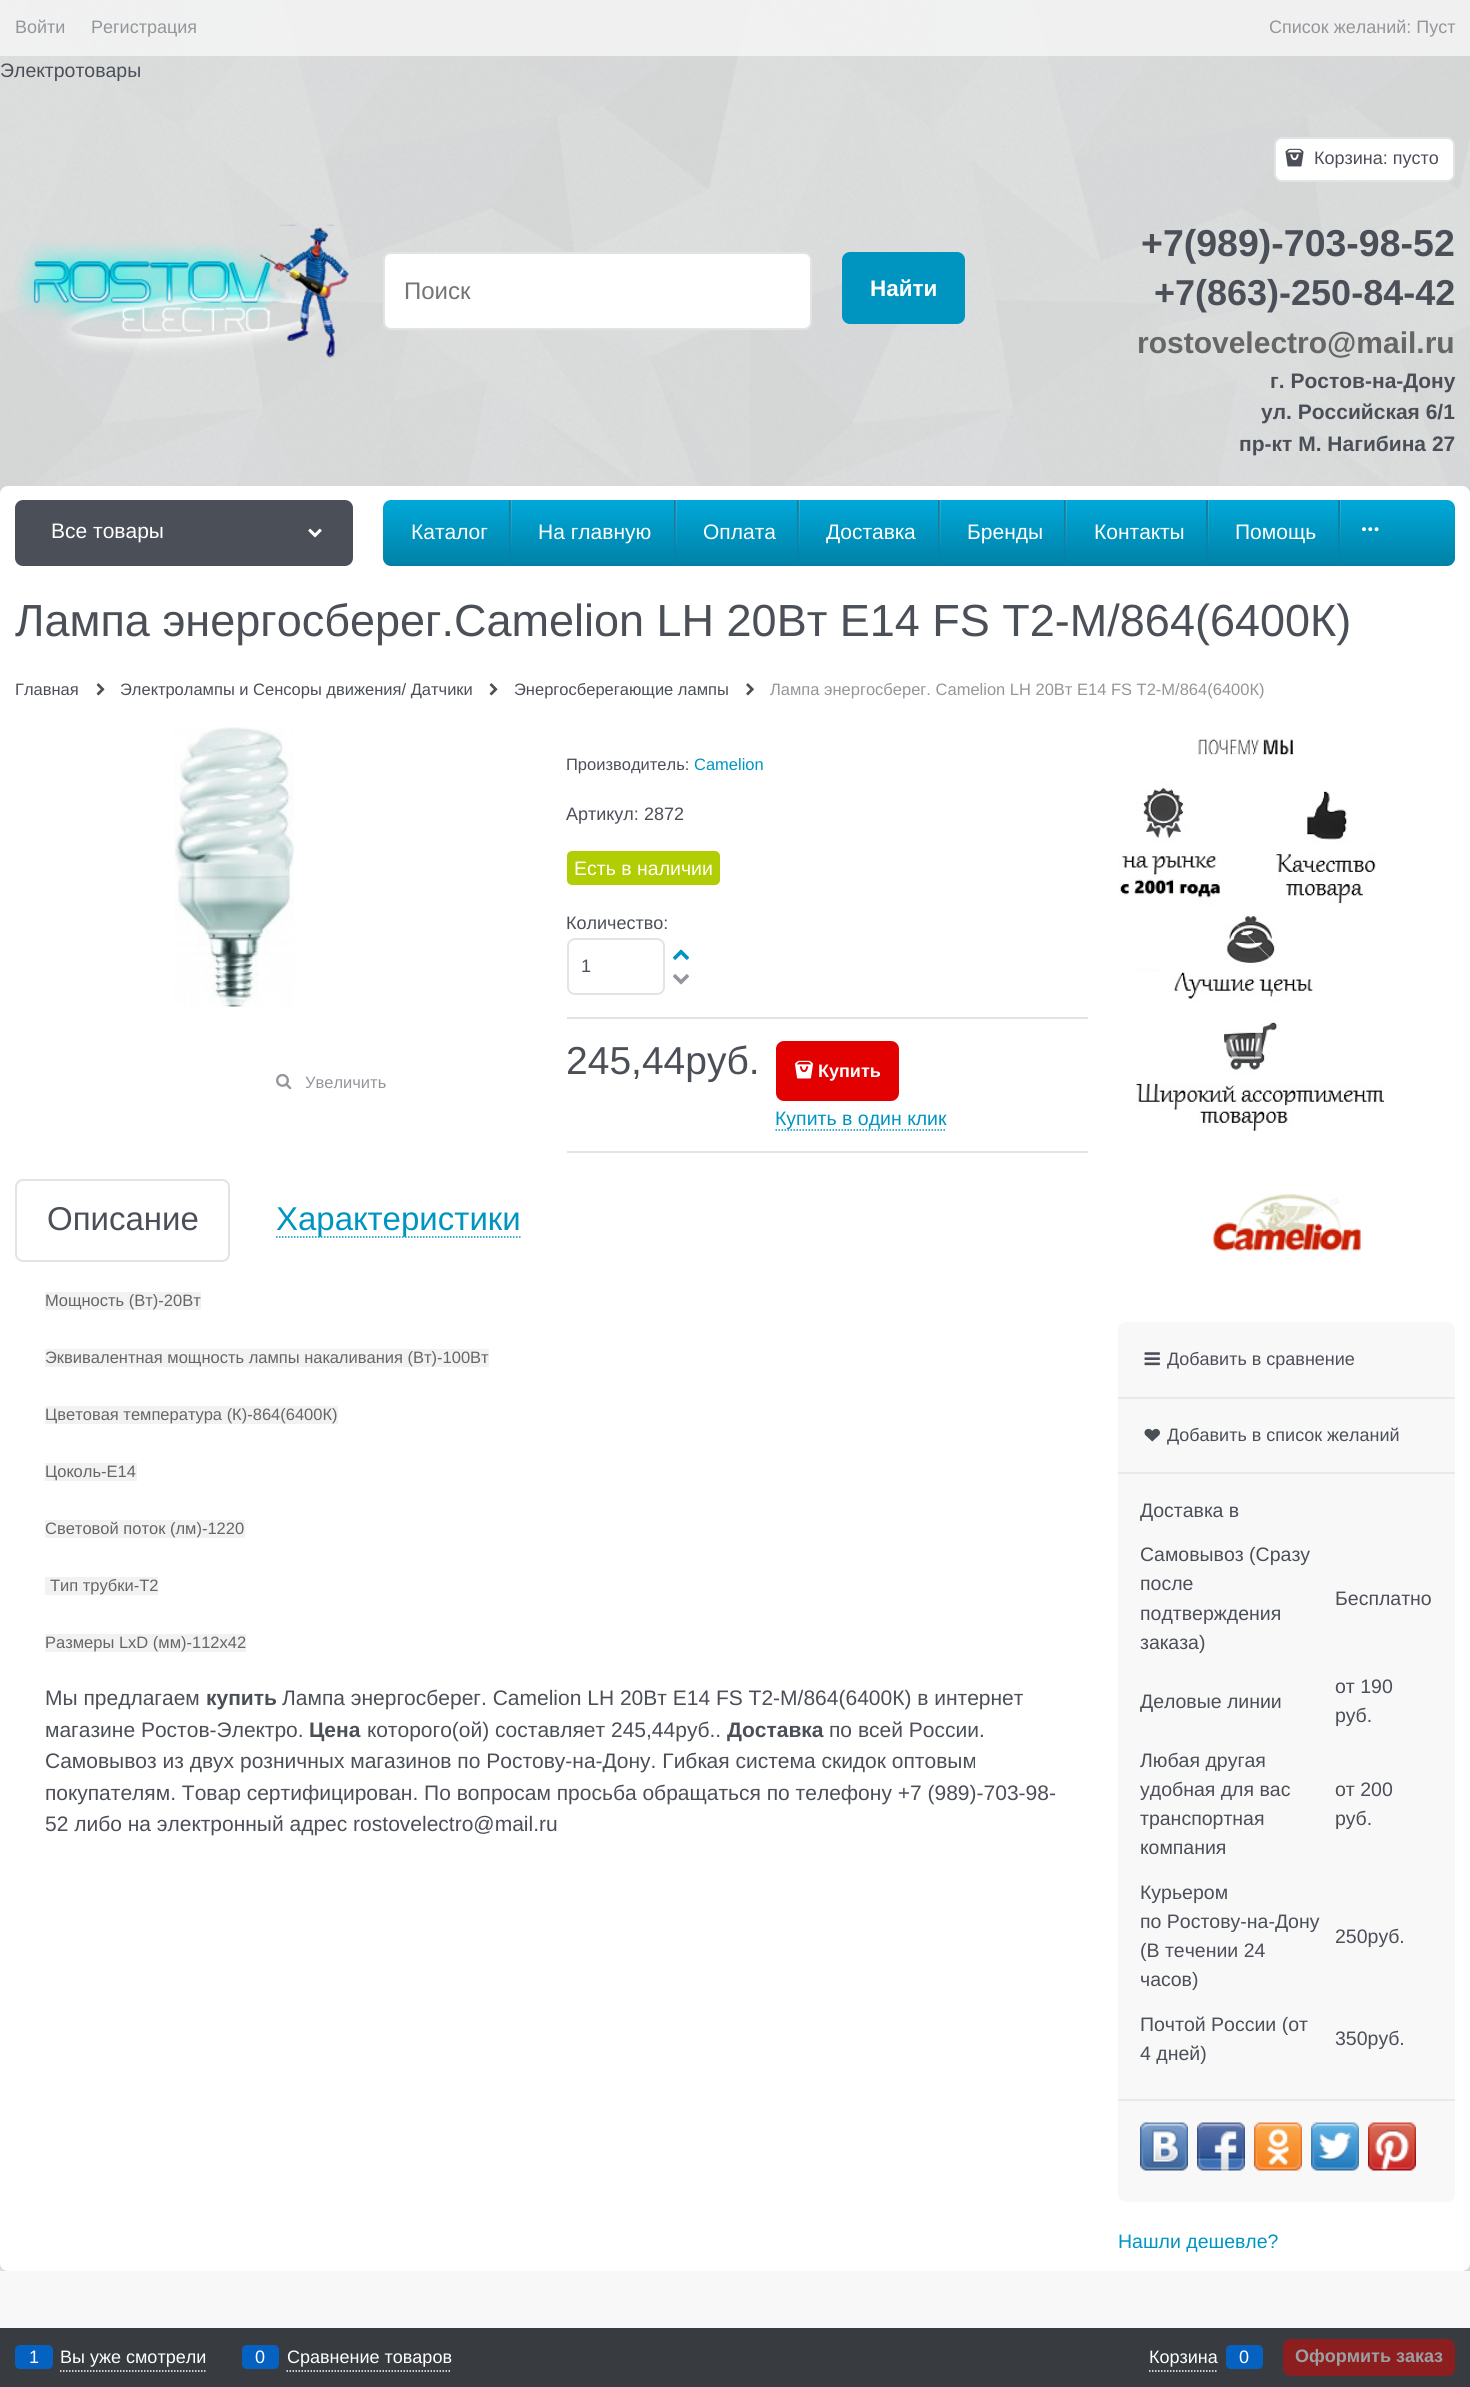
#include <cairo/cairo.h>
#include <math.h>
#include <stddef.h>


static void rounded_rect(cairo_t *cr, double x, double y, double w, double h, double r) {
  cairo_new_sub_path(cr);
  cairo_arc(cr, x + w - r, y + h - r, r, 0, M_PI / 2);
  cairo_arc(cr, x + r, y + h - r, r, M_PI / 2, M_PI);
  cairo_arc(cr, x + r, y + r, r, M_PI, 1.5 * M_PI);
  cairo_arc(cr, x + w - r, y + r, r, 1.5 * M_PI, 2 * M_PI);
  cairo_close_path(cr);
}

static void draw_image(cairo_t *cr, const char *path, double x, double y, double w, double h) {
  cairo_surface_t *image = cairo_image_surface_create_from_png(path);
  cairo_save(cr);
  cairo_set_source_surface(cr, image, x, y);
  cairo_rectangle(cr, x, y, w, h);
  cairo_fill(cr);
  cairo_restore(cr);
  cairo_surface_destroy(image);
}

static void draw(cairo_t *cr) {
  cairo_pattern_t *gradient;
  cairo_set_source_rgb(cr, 1, 1, 1);
  cairo_paint(cr);
  draw_image(cr, "images/1.png", 0, 0, 1470, 2271);
  cairo_set_source_rgba(cr, 243 / 255.0, 243 / 255.0, 243 / 255.0, 0.9);
  cairo_rectangle(cr, 0, 0, 1470, 56);
  cairo_fill(cr);
  draw_image(cr, "images/2.png", 15, 224, 334, 134);
  cairo_set_source_rgb(cr, 1, 1, 1);
  rounded_rect(cr, 384, 253, 427, 76, 7);
  cairo_fill_preserve(cr);
  cairo_set_source_rgb(cr, 226 / 255.0, 227 / 255.0, 228 / 255.0);
  cairo_stroke(cr);
  cairo_set_source_rgb(cr, 0, 149 / 255.0, 192 / 255.0);
  rounded_rect(cr, 842, 252, 123, 72, 8);
  cairo_fill(cr);
  cairo_set_source_rgb(cr, 1, 1, 1);
  rounded_rect(cr, 1275, 138, 179, 43, 7);
  cairo_fill_preserve(cr);
  cairo_set_source_rgb(cr, 226 / 255.0, 227 / 255.0, 228 / 255.0);
  cairo_stroke(cr);
  draw_image(cr, "images/3.png", 1285, 148, 19, 19);
  cairo_set_source_rgb(cr, 1, 1, 1);
  rounded_rect(cr, 0, 486, 1470, 1785, 8);
  cairo_fill(cr);
  cairo_set_source_rgb(cr, 75 / 255.0, 79 / 255.0, 88 / 255.0);
  rounded_rect(cr, 15, 500, 338, 66, 8);
  cairo_fill(cr);
  draw_image(cr, "images/4.png", 308, 528, 14, 10);
  gradient = cairo_pattern_create_linear(919, 499, 919, 566);
  cairo_pattern_add_color_stop_rgba(gradient, 0, 0, 169 / 255.0, 218 / 255.0, 1);
  cairo_pattern_add_color_stop_rgba(gradient, 0.5, 0, 149 / 255.0, 192 / 255.0, 1);
  cairo_pattern_add_color_stop_rgba(gradient, 1, 0, 129 / 255.0, 167 / 255.0, 1);
  cairo_set_source(cr, gradient);
  cairo_pattern_destroy(gradient);
  rounded_rect(cr, 383, 500, 1072, 66, 8);
  cairo_fill(cr);
  gradient = cairo_pattern_create_linear(511, 500, 511, 566);
  cairo_pattern_add_color_stop_rgba(gradient, 0, 1, 1, 1, 0.14);
  cairo_pattern_add_color_stop_rgba(gradient, 0.72, 1, 1, 1, 0.02);
  cairo_pattern_add_color_stop_rgba(gradient, 1, 1, 1, 1, 0);
  cairo_set_source(cr, gradient);
  cairo_pattern_destroy(gradient);
  cairo_rectangle(cr, 510, 500, 2, 47);
  cairo_fill(cr);
  gradient = cairo_pattern_create_linear(509, 500, 509, 566);
  cairo_pattern_add_color_stop_rgba(gradient, 0, 57 / 255.0, 57 / 255.0, 57 / 255.0, 0.39);
  cairo_pattern_add_color_stop_rgba(gradient, 0.17, 57 / 255.0, 57 / 255.0, 57 / 255.0, 0.33);
  cairo_pattern_add_color_stop_rgba(gradient, 0.61, 57 / 255.0, 57 / 255.0, 57 / 255.0, 0.12);
  cairo_pattern_add_color_stop_rgba(gradient, 0.96, 57 / 255.0, 57 / 255.0, 57 / 255.0, 0.01);
  cairo_pattern_add_color_stop_rgba(gradient, 0.98, 1, 1, 1, 0.01);
  cairo_pattern_add_color_stop_rgba(gradient, 1, 1, 1, 1, 0);
  cairo_set_source(cr, gradient);
  cairo_pattern_destroy(gradient);
  cairo_rectangle(cr, 509, 500, 2, 66);
  cairo_fill(cr);
  gradient = cairo_pattern_create_linear(676, 500, 676, 566);
  cairo_pattern_add_color_stop_rgba(gradient, 0, 1, 1, 1, 0.14);
  cairo_pattern_add_color_stop_rgba(gradient, 0.72, 1, 1, 1, 0.02);
  cairo_pattern_add_color_stop_rgba(gradient, 1, 1, 1, 1, 0);
  cairo_set_source(cr, gradient);
  cairo_pattern_destroy(gradient);
  cairo_rectangle(cr, 675, 500, 2, 47);
  cairo_fill(cr);
  gradient = cairo_pattern_create_linear(674, 500, 674, 566);
  cairo_pattern_add_color_stop_rgba(gradient, 0, 57 / 255.0, 57 / 255.0, 57 / 255.0, 0.39);
  cairo_pattern_add_color_stop_rgba(gradient, 0.17, 57 / 255.0, 57 / 255.0, 57 / 255.0, 0.33);
  cairo_pattern_add_color_stop_rgba(gradient, 0.61, 57 / 255.0, 57 / 255.0, 57 / 255.0, 0.12);
  cairo_pattern_add_color_stop_rgba(gradient, 0.96, 57 / 255.0, 57 / 255.0, 57 / 255.0, 0.01);
  cairo_pattern_add_color_stop_rgba(gradient, 0.98, 1, 1, 1, 0.01);
  cairo_pattern_add_color_stop_rgba(gradient, 1, 1, 1, 1, 0);
  cairo_set_source(cr, gradient);
  cairo_pattern_destroy(gradient);
  cairo_rectangle(cr, 674, 500, 2, 66);
  cairo_fill(cr);
  gradient = cairo_pattern_create_linear(799, 500, 799, 566);
  cairo_pattern_add_color_stop_rgba(gradient, 0, 1, 1, 1, 0.14);
  cairo_pattern_add_color_stop_rgba(gradient, 0.72, 1, 1, 1, 0.02);
  cairo_pattern_add_color_stop_rgba(gradient, 1, 1, 1, 1, 0);
  cairo_set_source(cr, gradient);
  cairo_pattern_destroy(gradient);
  cairo_rectangle(cr, 798, 500, 2, 47);
  cairo_fill(cr);
  gradient = cairo_pattern_create_linear(797, 500, 797, 566);
  cairo_pattern_add_color_stop_rgba(gradient, 0, 57 / 255.0, 57 / 255.0, 57 / 255.0, 0.39);
  cairo_pattern_add_color_stop_rgba(gradient, 0.17, 57 / 255.0, 57 / 255.0, 57 / 255.0, 0.33);
  cairo_pattern_add_color_stop_rgba(gradient, 0.61, 57 / 255.0, 57 / 255.0, 57 / 255.0, 0.12);
  cairo_pattern_add_color_stop_rgba(gradient, 0.96, 57 / 255.0, 57 / 255.0, 57 / 255.0, 0.01);
  cairo_pattern_add_color_stop_rgba(gradient, 0.98, 1, 1, 1, 0.01);
  cairo_pattern_add_color_stop_rgba(gradient, 1, 1, 1, 1, 0);
  cairo_set_source(cr, gradient);
  cairo_pattern_destroy(gradient);
  cairo_rectangle(cr, 797, 500, 2, 66);
  cairo_fill(cr);
  gradient = cairo_pattern_create_linear(940, 500, 940, 566);
  cairo_pattern_add_color_stop_rgba(gradient, 0, 1, 1, 1, 0.14);
  cairo_pattern_add_color_stop_rgba(gradient, 0.72, 1, 1, 1, 0.02);
  cairo_pattern_add_color_stop_rgba(gradient, 1, 1, 1, 1, 0);
  cairo_set_source(cr, gradient);
  cairo_pattern_destroy(gradient);
  cairo_rectangle(cr, 939, 500, 2, 47);
  cairo_fill(cr);
  gradient = cairo_pattern_create_linear(938, 500, 938, 566);
  cairo_pattern_add_color_stop_rgba(gradient, 0, 57 / 255.0, 57 / 255.0, 57 / 255.0, 0.39);
  cairo_pattern_add_color_stop_rgba(gradient, 0.17, 57 / 255.0, 57 / 255.0, 57 / 255.0, 0.33);
  cairo_pattern_add_color_stop_rgba(gradient, 0.61, 57 / 255.0, 57 / 255.0, 57 / 255.0, 0.12);
  cairo_pattern_add_color_stop_rgba(gradient, 0.96, 57 / 255.0, 57 / 255.0, 57 / 255.0, 0.01);
  cairo_pattern_add_color_stop_rgba(gradient, 0.98, 1, 1, 1, 0.01);
  cairo_pattern_add_color_stop_rgba(gradient, 1, 1, 1, 1, 0);
  cairo_set_source(cr, gradient);
  cairo_pattern_destroy(gradient);
  cairo_rectangle(cr, 938, 500, 2, 66);
  cairo_fill(cr);
  gradient = cairo_pattern_create_linear(1066, 500, 1066, 566);
  cairo_pattern_add_color_stop_rgba(gradient, 0, 1, 1, 1, 0.14);
  cairo_pattern_add_color_stop_rgba(gradient, 0.72, 1, 1, 1, 0.02);
  cairo_pattern_add_color_stop_rgba(gradient, 1, 1, 1, 1, 0);
  cairo_set_source(cr, gradient);
  cairo_pattern_destroy(gradient);
  cairo_rectangle(cr, 1065, 500, 2, 47);
  cairo_fill(cr);
  gradient = cairo_pattern_create_linear(1064, 500, 1064, 566);
  cairo_pattern_add_color_stop_rgba(gradient, 0, 57 / 255.0, 57 / 255.0, 57 / 255.0, 0.39);
  cairo_pattern_add_color_stop_rgba(gradient, 0.17, 57 / 255.0, 57 / 255.0, 57 / 255.0, 0.33);
  cairo_pattern_add_color_stop_rgba(gradient, 0.61, 57 / 255.0, 57 / 255.0, 57 / 255.0, 0.12);
  cairo_pattern_add_color_stop_rgba(gradient, 0.96, 57 / 255.0, 57 / 255.0, 57 / 255.0, 0.01);
  cairo_pattern_add_color_stop_rgba(gradient, 0.98, 1, 1, 1, 0.01);
  cairo_pattern_add_color_stop_rgba(gradient, 1, 1, 1, 1, 0);
  cairo_set_source(cr, gradient);
  cairo_pattern_destroy(gradient);
  cairo_rectangle(cr, 1064, 500, 2, 66);
  cairo_fill(cr);
  gradient = cairo_pattern_create_linear(1208, 500, 1208, 566);
  cairo_pattern_add_color_stop_rgba(gradient, 0, 1, 1, 1, 0.14);
  cairo_pattern_add_color_stop_rgba(gradient, 0.72, 1, 1, 1, 0.02);
  cairo_pattern_add_color_stop_rgba(gradient, 1, 1, 1, 1, 0);
  cairo_set_source(cr, gradient);
  cairo_pattern_destroy(gradient);
  cairo_rectangle(cr, 1208, 500, 1, 47);
  cairo_fill(cr);
  gradient = cairo_pattern_create_linear(1207, 500, 1207, 566);
  cairo_pattern_add_color_stop_rgba(gradient, 0, 57 / 255.0, 57 / 255.0, 57 / 255.0, 0.39);
  cairo_pattern_add_color_stop_rgba(gradient, 0.17, 57 / 255.0, 57 / 255.0, 57 / 255.0, 0.33);
  cairo_pattern_add_color_stop_rgba(gradient, 0.61, 57 / 255.0, 57 / 255.0, 57 / 255.0, 0.12);
  cairo_pattern_add_color_stop_rgba(gradient, 0.96, 57 / 255.0, 57 / 255.0, 57 / 255.0, 0.01);
  cairo_pattern_add_color_stop_rgba(gradient, 0.98, 1, 1, 1, 0.01);
  cairo_pattern_add_color_stop_rgba(gradient, 1, 1, 1, 1, 0);
  cairo_set_source(cr, gradient);
  cairo_pattern_destroy(gradient);
  cairo_rectangle(cr, 1206, 500, 2, 66);
  cairo_fill(cr);
  gradient = cairo_pattern_create_linear(1340, 500, 1340, 566);
  cairo_pattern_add_color_stop_rgba(gradient, 0, 1, 1, 1, 0.14);
  cairo_pattern_add_color_stop_rgba(gradient, 0.72, 1, 1, 1, 0.02);
  cairo_pattern_add_color_stop_rgba(gradient, 1, 1, 1, 1, 0);
  cairo_set_source(cr, gradient);
  cairo_pattern_destroy(gradient);
  cairo_rectangle(cr, 1340, 500, 1, 47);
  cairo_fill(cr);
  gradient = cairo_pattern_create_linear(1339, 500, 1339, 566);
  cairo_pattern_add_color_stop_rgba(gradient, 0, 57 / 255.0, 57 / 255.0, 57 / 255.0, 0.39);
  cairo_pattern_add_color_stop_rgba(gradient, 0.17, 57 / 255.0, 57 / 255.0, 57 / 255.0, 0.33);
  cairo_pattern_add_color_stop_rgba(gradient, 0.61, 57 / 255.0, 57 / 255.0, 57 / 255.0, 0.12);
  cairo_pattern_add_color_stop_rgba(gradient, 0.96, 57 / 255.0, 57 / 255.0, 57 / 255.0, 0.01);
  cairo_pattern_add_color_stop_rgba(gradient, 0.98, 1, 1, 1, 0.01);
  cairo_pattern_add_color_stop_rgba(gradient, 1, 1, 1, 1, 0);
  cairo_set_source(cr, gradient);
  cairo_pattern_destroy(gradient);
  cairo_rectangle(cr, 1338, 500, 2, 66);
  cairo_fill(cr);
  draw_image(cr, "images/5.png", 1362, 527, 17, 5);
  draw_image(cr, "images/6.png", 96, 683, 9, 13);
  draw_image(cr, "images/6.png", 489, 683, 9, 13);
  draw_image(cr, "images/7.png", 746, 683, 8, 13);
  draw_image(cr, "images/8.png", 174, 727, 120, 280);
  draw_image(cr, "images/9.png", 276, 1073, 16, 17);
  cairo_set_source_rgb(cr, 177 / 255.0, 205 / 255.0, 3 / 255.0);
  rounded_rect(cr, 567, 851, 153, 34, 5);
  cairo_fill(cr);
  rounded_rect(cr, 568, 939, 96, 55, 7);
  cairo_set_source_rgb(cr, 226 / 255.0, 227 / 255.0, 228 / 255.0);
  cairo_stroke(cr);
  draw_image(cr, "images/10.png", 672, 949, 18, 11);
  draw_image(cr, "images/11.png", 673, 974, 16, 11);
  cairo_rectangle(cr, 567, 1017, 521, 2);
  cairo_fill(cr);
  cairo_rectangle(cr, 567, 1151, 521, 2);
  cairo_fill(cr);
  cairo_set_source_rgb(cr, 226 / 255.0, 0, 0);
  rounded_rect(cr, 776, 1041, 123, 60, 8);
  cairo_fill(cr);
  draw_image(cr, "images/12.png", 795, 1060, 18, 19);
  cairo_new_path(cr);
  cairo_move_to(cr, 775.5, 1130);
  cairo_line_to(cr, 946.5, 1130);
  cairo_set_source_rgb(cr, 0, 149 / 255.0, 192 / 255.0);
  cairo_set_line_width(cr, 1.5);
  cairo_set_dash(cr, (double[]){1.5, 1.5}, 2, 0);
  cairo_stroke(cr);
  rounded_rect(cr, 16, 1180, 213, 81, 7);
  cairo_set_source_rgb(cr, 226 / 255.0, 227 / 255.0, 228 / 255.0);
  cairo_set_line_width(cr, 2);
  cairo_set_dash(cr, NULL, 0, 0);
  cairo_stroke(cr);
  cairo_new_path(cr);
  cairo_move_to(cr, 276, 1237);
  cairo_line_to(cr, 520.5, 1237);
  cairo_set_source_rgb(cr, 0, 149 / 255.0, 192 / 255.0);
  cairo_set_line_width(cr, 1.5);
  cairo_set_dash(cr, (double[]){1.5, 1.5}, 2, 0);
  cairo_stroke(cr);
  cairo_set_source_rgb(cr, 242 / 255.0, 242 / 255.0, 242 / 255.0);
  cairo_rectangle(cr, 45, 1292, 156, 18);
  cairo_fill(cr);
  cairo_rectangle(cr, 45, 1349, 444, 18);
  cairo_fill(cr);
  cairo_rectangle(cr, 45, 1406, 293, 18);
  cairo_fill(cr);
  cairo_rectangle(cr, 45, 1463, 92, 18);
  cairo_fill(cr);
  cairo_rectangle(cr, 45, 1520, 200, 18);
  cairo_fill(cr);
  cairo_rectangle(cr, 45, 1577, 113, 18);
  cairo_fill(cr);
  cairo_rectangle(cr, 45, 1634, 201, 18);
  cairo_fill(cr);
  draw_image(cr, "images/13.png", 1118, 738, 267, 393);
  draw_image(cr, "images/14.png", 1212, 1194, 149, 58);
  cairo_set_source_rgb(cr, 248 / 255.0, 248 / 255.0, 248 / 255.0);
  rounded_rect(cr, 1118, 1322, 337, 880, 8);
  cairo_fill(cr);
  cairo_set_source_rgb(cr, 233 / 255.0, 233 / 255.0, 233 / 255.0);
  cairo_rectangle(cr, 1118, 1397, 337, 2);
  cairo_fill(cr);
  draw_image(cr, "images/15.png", 1144, 1352, 16, 14);
  cairo_rectangle(cr, 1118, 1472, 337, 2);
  cairo_fill(cr);
  draw_image(cr, "images/16.png", 1144, 1428, 16, 14);
  cairo_rectangle(cr, 1118, 2099, 337, 2);
  cairo_fill(cr);
  draw_image(cr, "images/17.png", 1140, 2122, 48, 49);
  draw_image(cr, "images/18.png", 1197, 2122, 48, 49);
  draw_image(cr, "images/19.png", 1254, 2122, 48, 49);
  draw_image(cr, "images/20.png", 1311, 2122, 48, 49);
  draw_image(cr, "images/21.png", 1368, 2122, 48, 49);
  cairo_set_source_rgb(cr, 248 / 255.0, 248 / 255.0, 248 / 255.0);
  cairo_rectangle(cr, 0, 2271, 1470, 57);
  cairo_fill(cr);
  cairo_set_source_rgb(cr, 56 / 255.0, 60 / 255.0, 64 / 255.0);
  cairo_rectangle(cr, 0, 2328, 1470, 59);
  cairo_fill(cr);
  cairo_new_path(cr);
  cairo_move_to(cr, 60, 2371);
  cairo_line_to(cr, 205.5, 2371);
  cairo_set_source_rgb(cr, 1, 1, 1);
  cairo_stroke(cr);
  cairo_set_source_rgb(cr, 6 / 255.0, 98 / 255.0, 193 / 255.0);
  rounded_rect(cr, 15, 2345, 38, 24, 5);
  cairo_fill(cr);
  cairo_new_path(cr);
  cairo_move_to(cr, 286.5, 2371);
  cairo_line_to(cr, 451.5, 2371);
  cairo_set_source_rgb(cr, 1, 1, 1);
  cairo_stroke(cr);
  cairo_set_source_rgb(cr, 6 / 255.0, 98 / 255.0, 193 / 255.0);
  rounded_rect(cr, 242, 2345, 37, 24, 5);
  cairo_fill(cr);
  cairo_new_path(cr);
  cairo_move_to(cr, 1149, 2371);
  cairo_line_to(cr, 1218, 2371);
  cairo_set_source_rgb(cr, 1, 1, 1);
  cairo_stroke(cr);
  cairo_set_source_rgb(cr, 6 / 255.0, 98 / 255.0, 193 / 255.0);
  rounded_rect(cr, 1226, 2345, 37, 24, 5);
  cairo_fill(cr);
  cairo_set_source_rgb(cr, 141 / 255.0, 30 / 255.0, 32 / 255.0);
  rounded_rect(cr, 1283, 2339, 172, 37, 8);
  cairo_fill(cr);
  cairo_select_font_face(cr, "Liberation Sans", CAIRO_FONT_SLANT_NORMAL, CAIRO_FONT_WEIGHT_NORMAL);
  cairo_set_font_size(cr, 18);
  cairo_set_source_rgb(cr, 148 / 255.0, 150 / 255.0, 155 / 255.0);
  cairo_move_to(cr, 15, 33);
  cairo_show_text(cr, "Войти");
  cairo_move_to(cr, 91, 33);
  cairo_show_text(cr, "Регистрация");
  cairo_move_to(cr, 1269, 33);
  cairo_show_text(cr, "Список желаний: Пуст");
  cairo_set_font_size(cr, 19.5);
  cairo_set_source_rgb(cr, 75 / 255.0, 79 / 255.0, 88 / 255.0);
  cairo_move_to(cr, 0, 77);
  cairo_show_text(cr, "Электротовары");
  cairo_set_font_size(cr, 24);
  cairo_set_source_rgb(cr, 117 / 255.0, 117 / 255.0, 117 / 255.0);
  cairo_move_to(cr, 404, 299);
  cairo_show_text(cr, "Поиск");
  cairo_select_font_face(cr, "Liberation Sans", CAIRO_FONT_SLANT_NORMAL, CAIRO_FONT_WEIGHT_BOLD);
  cairo_set_font_size(cr, 22.5);
  cairo_set_source_rgb(cr, 1, 1, 1);
  cairo_move_to(cr, 870, 296);
  cairo_show_text(cr, "Найти");
  cairo_select_font_face(cr, "Liberation Sans", CAIRO_FONT_SLANT_NORMAL, CAIRO_FONT_WEIGHT_NORMAL);
  cairo_set_font_size(cr, 18);
  cairo_set_source_rgb(cr, 75 / 255.0, 79 / 255.0, 88 / 255.0);
  cairo_move_to(cr, 1314, 164);
  cairo_show_text(cr, "Корзина: пусто");
  cairo_select_font_face(cr, "Liberation Sans", CAIRO_FONT_SLANT_NORMAL, CAIRO_FONT_WEIGHT_BOLD);
  cairo_set_font_size(cr, 37.5);
  cairo_move_to(cr, 1141, 256);
  cairo_show_text(cr, "+7(989)-703-98-52");
  cairo_set_font_size(cr, 36);
  cairo_move_to(cr, 1154, 305);
  cairo_show_text(cr, "+7(863)-250-84-42");
  cairo_set_font_size(cr, 30);
  cairo_set_source_rgb(cr, 102 / 255.0, 102 / 255.0, 102 / 255.0);
  cairo_move_to(cr, 1137, 353);
  cairo_show_text(cr, "rostovelectro@mail.ru");
  cairo_set_font_size(cr, 21);
  cairo_set_source_rgb(cr, 75 / 255.0, 79 / 255.0, 88 / 255.0);
  cairo_move_to(cr, 1270, 388);
  cairo_show_text(cr, "г. Ростов-на-Дону");
  cairo_move_to(cr, 1261, 419);
  cairo_show_text(cr, "ул. Российская 6/1");
  cairo_move_to(cr, 1239, 451);
  cairo_show_text(cr, "пр-кт М. Нагибина 27");
  cairo_select_font_face(cr, "Liberation Sans", CAIRO_FONT_SLANT_NORMAL, CAIRO_FONT_WEIGHT_NORMAL);
  cairo_set_source_rgb(cr, 1, 1, 1);
  cairo_move_to(cr, 51, 538);
  cairo_show_text(cr, "Все товары");
  cairo_move_to(cr, 411, 539);
  cairo_show_text(cr, "Каталог");
  cairo_move_to(cr, 538, 539);
  cairo_show_text(cr, "На главную");
  cairo_move_to(cr, 703, 539);
  cairo_show_text(cr, "Оплата");
  cairo_move_to(cr, 826, 539);
  cairo_show_text(cr, "Доставка");
  cairo_move_to(cr, 967, 539);
  cairo_show_text(cr, "Бренды");
  cairo_move_to(cr, 1094, 539);
  cairo_show_text(cr, "Контакты");
  cairo_move_to(cr, 1235, 539);
  cairo_show_text(cr, "Помощь");
  cairo_set_font_size(cr, 45);
  cairo_set_source_rgb(cr, 75 / 255.0, 79 / 255.0, 88 / 255.0);
  cairo_move_to(cr, 15, 636);
  cairo_show_text(cr, "Лампа энергосберег.Camelion LH 20Вт Е14 FS T2-M/864(6400К)");
  cairo_set_font_size(cr, 16.5);
  cairo_move_to(cr, 15, 695);
  cairo_show_text(cr, "Главная");
  cairo_move_to(cr, 120, 695);
  cairo_show_text(cr, "Электролампы и Сенсоры движения/ Датчики");
  cairo_move_to(cr, 514, 695);
  cairo_show_text(cr, "Энергосберегающие лампы");
  cairo_set_source_rgb(cr, 148 / 255.0, 150 / 255.0, 155 / 255.0);
  cairo_move_to(cr, 770, 695);
  cairo_show_text(cr, "Лампа энергосберег. Camelion LH 20Вт Е14 FS T2-M/864(6400К)");
  cairo_move_to(cr, 305, 1088);
  cairo_show_text(cr, "Увеличить");
  cairo_set_source_rgb(cr, 75 / 255.0, 79 / 255.0, 88 / 255.0);
  cairo_move_to(cr, 566, 770);
  cairo_show_text(cr, "Производитель:");
  cairo_set_source_rgb(cr, 0, 149 / 255.0, 192 / 255.0);
  cairo_move_to(cr, 694, 770);
  cairo_show_text(cr, "Camelion");
  cairo_set_font_size(cr, 18);
  cairo_set_source_rgb(cr, 75 / 255.0, 79 / 255.0, 88 / 255.0);
  cairo_move_to(cr, 566, 820);
  cairo_show_text(cr, "Артикул:");
  cairo_move_to(cr, 644, 820);
  cairo_show_text(cr, "2872");
  cairo_set_font_size(cr, 19.5);
  cairo_set_source_rgb(cr, 1, 1, 1);
  cairo_move_to(cr, 574, 875);
  cairo_show_text(cr, "Есть в наличии");
  cairo_set_font_size(cr, 18);
  cairo_set_source_rgb(cr, 75 / 255.0, 79 / 255.0, 88 / 255.0);
  cairo_move_to(cr, 566, 929);
  cairo_show_text(cr, "Количество:");
  cairo_move_to(cr, 581, 972);
  cairo_show_text(cr, "1");
  cairo_set_font_size(cr, 39);
  cairo_move_to(cr, 566, 1074);
  cairo_show_text(cr, "245,44руб.");
  cairo_select_font_face(cr, "Liberation Sans", CAIRO_FONT_SLANT_NORMAL, CAIRO_FONT_WEIGHT_BOLD);
  cairo_set_font_size(cr, 18);
  cairo_set_source_rgb(cr, 1, 1, 1);
  cairo_move_to(cr, 818, 1077);
  cairo_show_text(cr, "Купить");
  cairo_select_font_face(cr, "Liberation Sans", CAIRO_FONT_SLANT_NORMAL, CAIRO_FONT_WEIGHT_NORMAL);
  cairo_set_font_size(cr, 19.5);
  cairo_set_source_rgb(cr, 0, 149 / 255.0, 192 / 255.0);
  cairo_move_to(cr, 775, 1125);
  cairo_show_text(cr, "Купить в один клик");
  cairo_set_font_size(cr, 33);
  cairo_set_source_rgb(cr, 75 / 255.0, 79 / 255.0, 88 / 255.0);
  cairo_move_to(cr, 47, 1230);
  cairo_show_text(cr, "Описание");
  cairo_set_source_rgb(cr, 0, 149 / 255.0, 192 / 255.0);
  cairo_move_to(cr, 276, 1230);
  cairo_show_text(cr, "Характеристики");
  cairo_set_font_size(cr, 16.5);
  cairo_set_source_rgb(cr, 102 / 255.0, 102 / 255.0, 102 / 255.0);
  cairo_move_to(cr, 45, 1306);
  cairo_show_text(cr, "Мощность (Вт)-20Вт");
  cairo_move_to(cr, 45, 1363);
  cairo_show_text(cr, "Эквивалентная мощность лампы накаливания (Вт)-100Вт");
  cairo_move_to(cr, 45, 1420);
  cairo_show_text(cr, "Цветовая температура (К)-864(6400К)");
  cairo_move_to(cr, 45, 1477);
  cairo_show_text(cr, "Цоколь-Е14");
  cairo_move_to(cr, 45, 1534);
  cairo_show_text(cr, "Световой поток (лм)-1220");
  cairo_move_to(cr, 50, 1591);
  cairo_show_text(cr, "Тип трубки-Т2");
  cairo_move_to(cr, 45, 1648);
  cairo_show_text(cr, "Размеры LxD (мм)-112х42");
  cairo_set_font_size(cr, 21);
  cairo_set_source_rgb(cr, 75 / 255.0, 79 / 255.0, 88 / 255.0);
  cairo_move_to(cr, 45, 1705);
  cairo_show_text(cr, "Мы предлагаем");
  cairo_select_font_face(cr, "Liberation Sans", CAIRO_FONT_SLANT_NORMAL, CAIRO_FONT_WEIGHT_BOLD);
  cairo_move_to(cr, 206, 1705);
  cairo_show_text(cr, "купить");
  cairo_select_font_face(cr, "Liberation Sans", CAIRO_FONT_SLANT_NORMAL, CAIRO_FONT_WEIGHT_NORMAL);
  cairo_move_to(cr, 282, 1705);
  cairo_show_text(cr, "Лампа энергосберег. Camelion LH 20Вт Е14 FS T2-M/864(6400К) в интернет");
  cairo_move_to(cr, 45, 1737);
  cairo_show_text(cr, "магазине Ростов-Электро.");
  cairo_select_font_face(cr, "Liberation Sans", CAIRO_FONT_SLANT_NORMAL, CAIRO_FONT_WEIGHT_BOLD);
  cairo_move_to(cr, 309, 1737);
  cairo_show_text(cr, "Цена");
  cairo_select_font_face(cr, "Liberation Sans", CAIRO_FONT_SLANT_NORMAL, CAIRO_FONT_WEIGHT_NORMAL);
  cairo_move_to(cr, 367, 1737);
  cairo_show_text(cr, "которого(ой) составляет 245,44руб..");
  cairo_select_font_face(cr, "Liberation Sans", CAIRO_FONT_SLANT_NORMAL, CAIRO_FONT_WEIGHT_BOLD);
  cairo_move_to(cr, 727, 1737);
  cairo_show_text(cr, "Доставка");
  cairo_select_font_face(cr, "Liberation Sans", CAIRO_FONT_SLANT_NORMAL, CAIRO_FONT_WEIGHT_NORMAL);
  cairo_move_to(cr, 829, 1737);
  cairo_show_text(cr, "по всей России.");
  cairo_move_to(cr, 45, 1768);
  cairo_show_text(cr, "Самовывоз из двух розничных магазинов по Ростову-на-Дону. Гибкая система скидок оптовым");
  cairo_move_to(cr, 45, 1800);
  cairo_show_text(cr, "покупателям. Товар сертифицирован. По вопросам просьба обращаться по телефону +7 (989)-703-98-");
  cairo_move_to(cr, 45, 1831);
  cairo_show_text(cr, "52 либо на электронный адрес rostovelectro@mail.ru");
  cairo_set_font_size(cr, 18);
  cairo_move_to(cr, 1167, 1365);
  cairo_show_text(cr, "Добавить в сравнение");
  cairo_move_to(cr, 1167, 1441);
  cairo_show_text(cr, "Добавить в список желаний");
  cairo_set_font_size(cr, 19.5);
  cairo_move_to(cr, 1140, 1517);
  cairo_show_text(cr, "Доставка в");
  cairo_move_to(cr, 1140, 1561);
  cairo_show_text(cr, "Самовывоз (Сразу");
  cairo_move_to(cr, 1140, 1590);
  cairo_show_text(cr, "после");
  cairo_move_to(cr, 1140, 1620);
  cairo_show_text(cr, "подтверждения");
  cairo_move_to(cr, 1140, 1649);
  cairo_show_text(cr, "заказа)");
  cairo_move_to(cr, 1335, 1605);
  cairo_show_text(cr, "Бесплатно");
  cairo_move_to(cr, 1140, 1708);
  cairo_show_text(cr, "Деловые линии");
  cairo_move_to(cr, 1335, 1693);
  cairo_show_text(cr, "от 190");
  cairo_move_to(cr, 1335, 1722);
  cairo_show_text(cr, "руб.");
  cairo_move_to(cr, 1140, 1767);
  cairo_show_text(cr, "Любая другая");
  cairo_move_to(cr, 1140, 1796);
  cairo_show_text(cr, "удобная для вас");
  cairo_move_to(cr, 1140, 1825);
  cairo_show_text(cr, "транспортная");
  cairo_move_to(cr, 1140, 1854);
  cairo_show_text(cr, "компания");
  cairo_move_to(cr, 1335, 1796);
  cairo_show_text(cr, "от 200");
  cairo_move_to(cr, 1335, 1825);
  cairo_show_text(cr, "руб.");
  cairo_move_to(cr, 1140, 1899);
  cairo_show_text(cr, "Курьером");
  cairo_move_to(cr, 1140, 1928);
  cairo_show_text(cr, "по Ростову-на-Дону");
  cairo_move_to(cr, 1140, 1957);
  cairo_show_text(cr, "(В течении 24");
  cairo_move_to(cr, 1140, 1986);
  cairo_show_text(cr, "часов)");
  cairo_move_to(cr, 1335, 1943);
  cairo_show_text(cr, "250руб.");
  cairo_move_to(cr, 1140, 2031);
  cairo_show_text(cr, "Почтой России (от");
  cairo_move_to(cr, 1140, 2060);
  cairo_show_text(cr, "4 дней)");
  cairo_move_to(cr, 1335, 2045);
  cairo_show_text(cr, "350руб.");
  cairo_set_source_rgb(cr, 0, 149 / 255.0, 192 / 255.0);
  cairo_move_to(cr, 1118, 2248);
  cairo_show_text(cr, "Нашли дешевле?");
  cairo_set_font_size(cr, 18);
  cairo_set_source_rgb(cr, 1, 1, 1);
  cairo_move_to(cr, 29, 2363);
  cairo_show_text(cr, "1");
  cairo_move_to(cr, 60, 2363);
  cairo_show_text(cr, "Вы уже смотрели");
  cairo_move_to(cr, 255, 2363);
  cairo_show_text(cr, "0");
  cairo_move_to(cr, 287, 2363);
  cairo_show_text(cr, "Сравнение товаров");
  cairo_move_to(cr, 1149, 2363);
  cairo_show_text(cr, "Корзина");
  cairo_move_to(cr, 1239, 2363);
  cairo_show_text(cr, "0");
  cairo_select_font_face(cr, "Liberation Sans", CAIRO_FONT_SLANT_NORMAL, CAIRO_FONT_WEIGHT_BOLD);
  cairo_set_source_rgb(cr, 156 / 255.0, 158 / 255.0, 160 / 255.0);
  cairo_move_to(cr, 1295, 2362);
  cairo_show_text(cr, "Оформить заказ");
}

int main(void) {
  cairo_surface_t *surface = cairo_image_surface_create(CAIRO_FORMAT_RGB24, 1470, 2387);
  cairo_t *cr = cairo_create(surface);
  cairo_font_options_t *options = cairo_font_options_create();
  cairo_font_options_set_hint_metrics(options, CAIRO_HINT_METRICS_OFF);
  cairo_font_options_set_hint_style(options, CAIRO_HINT_STYLE_NONE);
  cairo_set_font_options(cr, options);
  cairo_set_miter_limit(cr, 4);
  draw(cr);
  cairo_surface_write_to_png(surface, "out.png");
  cairo_font_options_destroy(options);
  cairo_destroy(cr);
  cairo_surface_destroy(surface);
  return 0;
}
